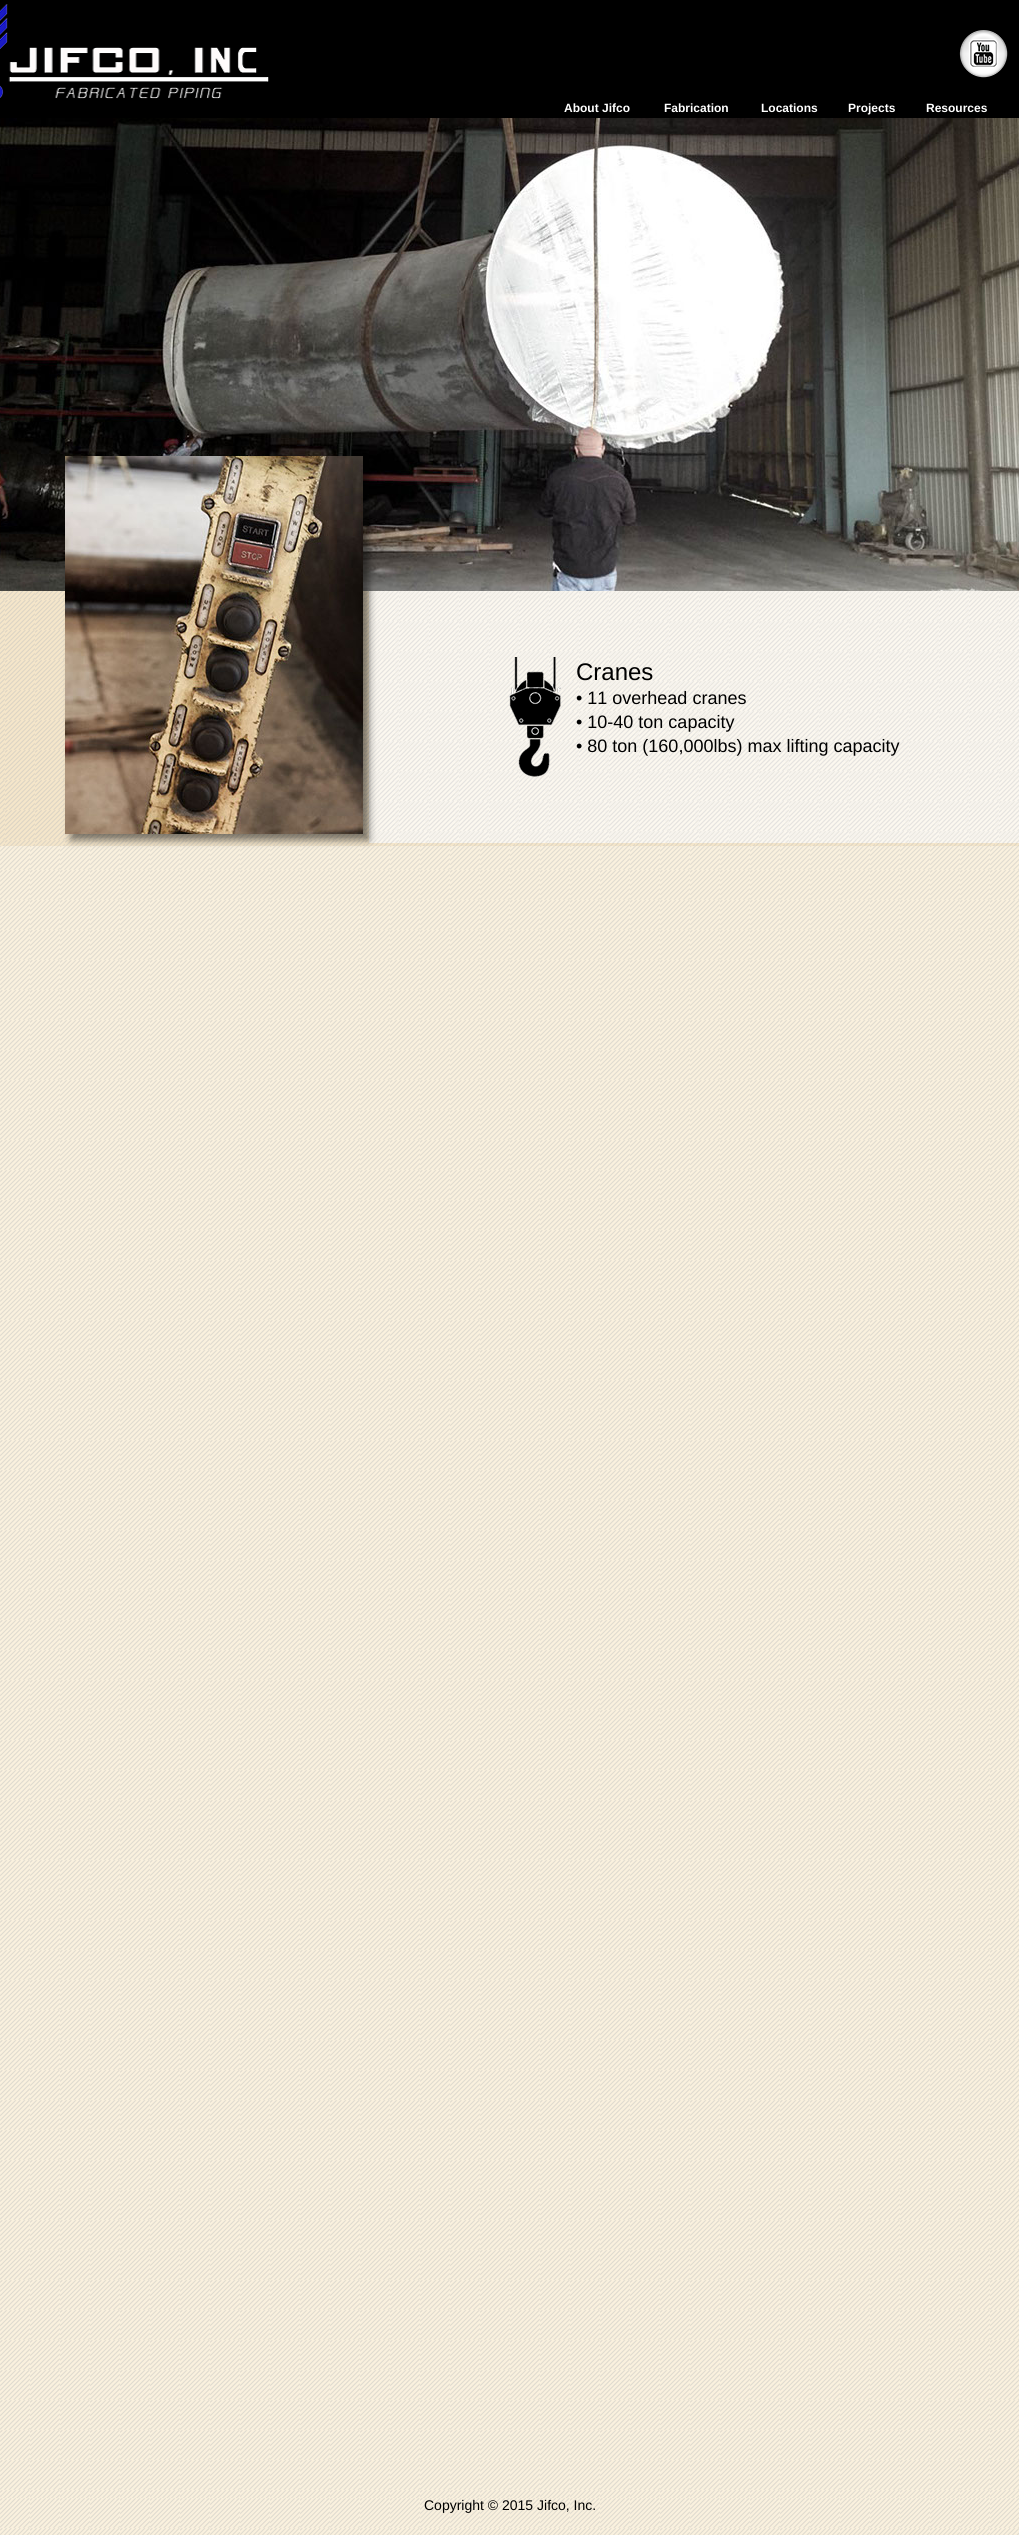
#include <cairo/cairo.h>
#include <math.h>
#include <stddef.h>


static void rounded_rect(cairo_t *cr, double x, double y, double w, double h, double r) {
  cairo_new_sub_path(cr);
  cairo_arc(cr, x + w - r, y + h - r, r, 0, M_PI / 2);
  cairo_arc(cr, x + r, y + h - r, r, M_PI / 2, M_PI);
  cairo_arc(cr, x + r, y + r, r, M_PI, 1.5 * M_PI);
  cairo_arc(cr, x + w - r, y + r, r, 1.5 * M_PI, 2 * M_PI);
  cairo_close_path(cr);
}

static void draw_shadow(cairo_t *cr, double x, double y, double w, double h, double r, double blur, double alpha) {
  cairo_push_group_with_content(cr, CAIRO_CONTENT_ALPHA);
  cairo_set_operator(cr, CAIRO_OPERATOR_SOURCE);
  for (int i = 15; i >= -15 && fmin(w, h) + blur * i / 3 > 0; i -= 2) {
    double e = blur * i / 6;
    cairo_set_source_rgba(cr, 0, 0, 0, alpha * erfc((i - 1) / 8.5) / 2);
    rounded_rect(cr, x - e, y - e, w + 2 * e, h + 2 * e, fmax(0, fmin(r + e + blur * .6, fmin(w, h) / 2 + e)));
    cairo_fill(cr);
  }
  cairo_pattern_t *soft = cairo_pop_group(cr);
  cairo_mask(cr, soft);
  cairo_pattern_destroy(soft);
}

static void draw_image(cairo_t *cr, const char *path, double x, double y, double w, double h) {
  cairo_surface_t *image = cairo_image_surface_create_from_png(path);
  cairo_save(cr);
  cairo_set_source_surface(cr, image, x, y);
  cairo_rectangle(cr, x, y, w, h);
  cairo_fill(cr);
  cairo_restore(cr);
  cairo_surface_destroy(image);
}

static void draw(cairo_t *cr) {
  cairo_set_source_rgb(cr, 250 / 255.0, 241 / 255.0, 222 / 255.0);
  cairo_paint(cr);
  draw_image(cr, "images/1.png", 0, 846, 1019, 1652);
  cairo_set_source_rgb(cr, 0, 0, 0);
  cairo_rectangle(cr, 0, 0, 1019, 118);
  cairo_fill(cr);
  draw_image(cr, "images/2.png", 0, 4, 269, 95);
  draw_image(cr, "images/3.png", 959, 30, 49, 48);
  draw_image(cr, "images/4.png", 0, 118, 1019, 473);
  cairo_set_source_rgb(cr, 245 / 255.0, 230 / 255.0, 202 / 255.0);
  cairo_rectangle(cr, 0, 591, 1019, 255);
  cairo_fill(cr);
  draw_image(cr, "images/6.png", 0, 591, 1019, 255);
  cairo_set_source_rgba(cr, 1, 1, 1, 0.7);
  cairo_rectangle(cr, 369, 591, 650, 252);
  cairo_fill(cr);
  draw_image(cr, "images/7.png", 369, 591, 650, 252);
  cairo_set_source_rgb(cr, 0, 0, 0);
  draw_shadow(cr, 71, 462, 298, 378, 0, 4, 0.5);
  draw_image(cr, "images/5.png", 65, 456, 298, 378);
  draw_image(cr, "images/8.png", 509, 657, 52, 120);
  draw_image(cr, "images/9.png", 0, 2498, 1019, 37);
  cairo_select_font_face(cr, "Liberation Sans", CAIRO_FONT_SLANT_NORMAL, CAIRO_FONT_WEIGHT_BOLD);
  cairo_set_font_size(cr, 12);
  cairo_set_source_rgb(cr, 1, 1, 1);
  cairo_move_to(cr, 564, 112);
  cairo_show_text(cr, "About Jifco");
  cairo_move_to(cr, 664, 112);
  cairo_show_text(cr, "Fabrication");
  cairo_move_to(cr, 761, 112);
  cairo_show_text(cr, "Locations");
  cairo_move_to(cr, 848, 112);
  cairo_show_text(cr, "Projects");
  cairo_move_to(cr, 926, 112);
  cairo_show_text(cr, "Resources");
  cairo_select_font_face(cr, "Liberation Sans", CAIRO_FONT_SLANT_NORMAL, CAIRO_FONT_WEIGHT_NORMAL);
  cairo_set_font_size(cr, 24);
  cairo_set_source_rgb(cr, 0, 0, 0);
  cairo_move_to(cr, 576, 680);
  cairo_show_text(cr, "Cranes");
  cairo_set_font_size(cr, 18);
  cairo_move_to(cr, 576, 704);
  cairo_show_text(cr, "• 11 overhead cranes");
  cairo_move_to(cr, 576, 728);
  cairo_show_text(cr, "• 10-40 ton capacity");
  cairo_move_to(cr, 576, 752);
  cairo_show_text(cr, "• 80 ton (160,000lbs) max lifting capacity");
  cairo_set_font_size(cr, 14);
  cairo_move_to(cr, 424, 2510);
  cairo_show_text(cr, "Copyright © 2015 Jifco, Inc.");
}

int main(void) {
  cairo_surface_t *surface = cairo_image_surface_create(CAIRO_FORMAT_RGB24, 1019, 2535);
  cairo_t *cr = cairo_create(surface);
  cairo_font_options_t *options = cairo_font_options_create();
  cairo_font_options_set_hint_metrics(options, CAIRO_HINT_METRICS_OFF);
  cairo_font_options_set_hint_style(options, CAIRO_HINT_STYLE_NONE);
  cairo_set_font_options(cr, options);
  cairo_set_miter_limit(cr, 4);
  draw(cr);
  cairo_surface_write_to_png(surface, "out.png");
  cairo_font_options_destroy(options);
  cairo_destroy(cr);
  cairo_surface_destroy(surface);
  return 0;
}
